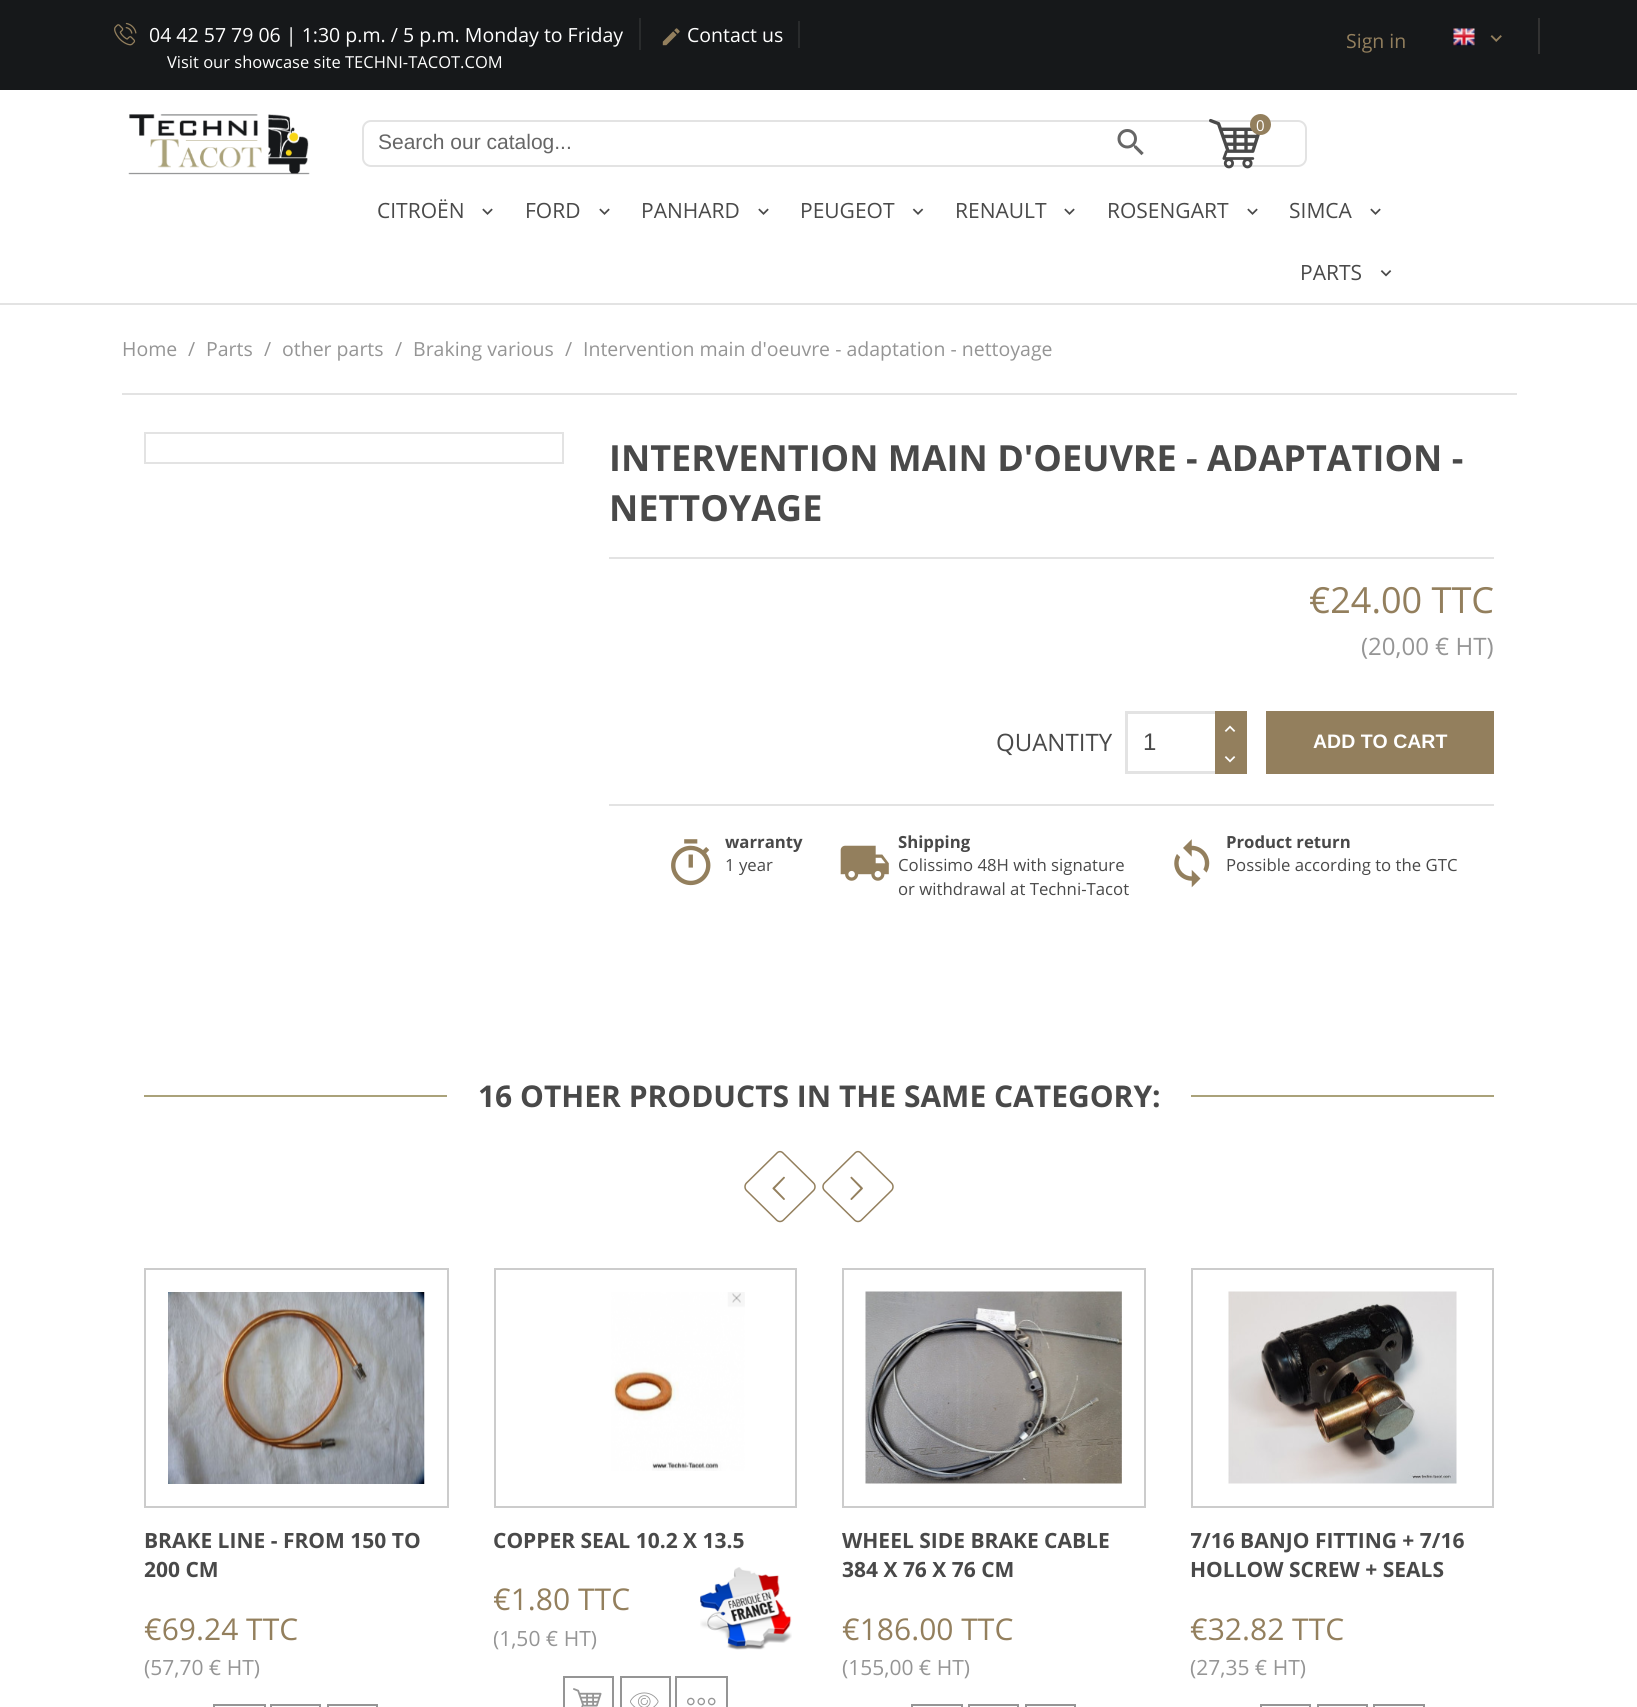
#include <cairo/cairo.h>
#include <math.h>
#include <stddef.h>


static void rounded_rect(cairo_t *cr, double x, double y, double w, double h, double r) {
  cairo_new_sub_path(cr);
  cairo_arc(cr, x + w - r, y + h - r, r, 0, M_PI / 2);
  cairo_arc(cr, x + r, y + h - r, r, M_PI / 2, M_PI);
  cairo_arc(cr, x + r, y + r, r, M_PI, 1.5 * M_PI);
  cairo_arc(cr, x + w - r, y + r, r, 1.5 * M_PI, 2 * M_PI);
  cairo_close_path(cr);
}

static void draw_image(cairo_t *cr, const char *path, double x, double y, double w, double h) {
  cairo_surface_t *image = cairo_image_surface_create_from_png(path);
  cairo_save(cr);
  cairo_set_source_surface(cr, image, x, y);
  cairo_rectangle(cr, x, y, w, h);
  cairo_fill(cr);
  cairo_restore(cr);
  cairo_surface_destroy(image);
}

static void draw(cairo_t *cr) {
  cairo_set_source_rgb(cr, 1, 1, 1);
  cairo_paint(cr);
  cairo_set_source_rgb(cr, 227 / 255.0, 227 / 255.0, 227 / 255.0);
  cairo_rectangle(cr, 0, 303, 1637, 2);
  cairo_fill(cr);
  cairo_set_source_rgb(cr, 22 / 255.0, 24 / 255.0, 26 / 255.0);
  cairo_rectangle(cr, 0, 0, 1637, 90);
  cairo_fill(cr);
  cairo_set_source_rgb(cr, 41 / 255.0, 43 / 255.0, 44 / 255.0);
  cairo_rectangle(cr, 639, 18, 2, 32);
  cairo_fill(cr);
  draw_image(cr, "images/1.png", 114, 22, 23, 24);
  cairo_rectangle(cr, 798, 21, 2, 27);
  cairo_fill(cr);
  draw_image(cr, "images/2.png", 662, 28, 18, 18);
  cairo_set_source_rgb(cr, 50 / 255.0, 50 / 255.0, 50 / 255.0);
  cairo_rectangle(cr, 1538, 18, 2, 36);
  cairo_fill(cr);
  draw_image(cr, "images/3.png", 1453, 28, 22, 18);
  draw_image(cr, "images/4.png", 1490, 35, 12, 7);
  draw_image(cr, "images/5.png", 128, 114, 182, 61);
  rounded_rect(cr, 363, 121, 943, 45, 8);
  cairo_set_source_rgb(cr, 227 / 255.0, 227 / 255.0, 227 / 255.0);
  cairo_stroke(cr);
  draw_image(cr, "images/6.png", 1209, 118, 51, 51);
  cairo_set_source_rgb(cr, 147 / 255.0, 127 / 255.0, 93 / 255.0);
  cairo_arc(cr, 1260.5, 124.5, 10.5, 0, 2 * M_PI);
  cairo_fill(cr);
  draw_image(cr, "images/7.png", 1117, 129, 27, 27);
  draw_image(cr, "images/8.png", 482, 208, 11, 7);
  draw_image(cr, "images/8.png", 599, 208, 11, 7);
  draw_image(cr, "images/8.png", 758, 208, 11, 7);
  draw_image(cr, "images/9.png", 912, 208, 12, 7);
  draw_image(cr, "images/8.png", 1064, 208, 11, 7);
  draw_image(cr, "images/8.png", 1247, 208, 11, 7);
  draw_image(cr, "images/8.png", 1370, 208, 11, 7);
  draw_image(cr, "images/10.png", 1380, 270, 12, 7);
  cairo_set_source_rgb(cr, 227 / 255.0, 227 / 255.0, 227 / 255.0);
  cairo_rectangle(cr, 122, 393, 1395, 2);
  cairo_fill(cr);
  cairo_rectangle(cr, 145, 433, 418, 30);
  cairo_stroke(cr);
  cairo_rectangle(cr, 609, 557, 885, 2);
  cairo_fill(cr);
  cairo_rectangle(cr, 609, 804, 885, 2);
  cairo_fill(cr);
  cairo_rectangle(cr, 1125, 711, 90, 3);
  cairo_fill(cr);
  cairo_rectangle(cr, 1125, 771, 90, 3);
  cairo_fill(cr);
  cairo_rectangle(cr, 1125, 711, 3, 63);
  cairo_fill(cr);
  cairo_set_source_rgb(cr, 147 / 255.0, 127 / 255.0, 93 / 255.0);
  cairo_rectangle(cr, 1215, 711, 32, 63);
  cairo_fill(cr);
  draw_image(cr, "images/11.png", 1224, 725, 12, 7);
  draw_image(cr, "images/12.png", 1224, 756, 12, 7);
  cairo_rectangle(cr, 1266, 711, 228, 63);
  cairo_fill(cr);
  draw_image(cr, "images/13.png", 671, 839, 40, 47);
  draw_image(cr, "images/14.png", 840, 845, 49, 36);
  draw_image(cr, "images/15.png", 1174, 839, 36, 49);
  cairo_set_source_rgb(cr, 170 / 255.0, 162 / 255.0, 122 / 255.0);
  cairo_rectangle(cr, 144, 1095, 303, 2);
  cairo_fill(cr);
  cairo_rectangle(cr, 1191, 1095, 303, 2);
  cairo_fill(cr);
  cairo_new_path(cr);
  cairo_move_to(cr, 783.5, 1153.5);
  cairo_line_to(cr, 813.5, 1183);
  cairo_curve_to(cr, 815.5, 1185, 815.5, 1188.5, 813.5, 1190.5);
  cairo_line_to(cr, 783.5, 1220);
  cairo_curve_to(cr, 781.5, 1222, 778.5, 1222, 776.5, 1220);
  cairo_line_to(cr, 746.5, 1190.5);
  cairo_curve_to(cr, 744.5, 1188.5, 744.5, 1185, 746.5, 1183);
  cairo_line_to(cr, 776.5, 1153.5);
  cairo_curve_to(cr, 778.5, 1151, 781.5, 1151, 783.5, 1153.5);
  cairo_close_path(cr);
  cairo_set_source_rgb(cr, 147 / 255.0, 127 / 255.0, 93 / 255.0);
  cairo_set_line_width(cr, 1.5);
  cairo_stroke(cr);
  draw_image(cr, "images/16.png", 772, 1176, 13, 24);
  cairo_new_path(cr);
  cairo_move_to(cr, 861.5, 1153.5);
  cairo_line_to(cr, 891.5, 1183);
  cairo_curve_to(cr, 893.5, 1185, 893.5, 1188.5, 891.5, 1190.5);
  cairo_line_to(cr, 861.5, 1220);
  cairo_curve_to(cr, 859.5, 1222, 856.5, 1222, 854.5, 1220);
  cairo_line_to(cr, 824.5, 1190.5);
  cairo_curve_to(cr, 822.5, 1188.5, 822.5, 1185, 824.5, 1183);
  cairo_line_to(cr, 854.5, 1153.5);
  cairo_curve_to(cr, 856.5, 1151, 859.5, 1151, 861.5, 1153.5);
  cairo_close_path(cr);
  cairo_stroke(cr);
  draw_image(cr, "images/17.png", 850, 1176, 13, 24);
  cairo_rectangle(cr, 145, 1269, 303, 238);
  cairo_set_source_rgb(cr, 204 / 255.0, 204 / 255.0, 204 / 255.0);
  cairo_set_line_width(cr, 2);
  cairo_stroke(cr);
  draw_image(cr, "images/18.png", 168, 1292, 257, 192);
  cairo_rectangle(cr, 214, 1705, 51, 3);
  cairo_set_source_rgb(cr, 149 / 255.0, 149 / 255.0, 149 / 255.0);
  cairo_stroke(cr);
  cairo_rectangle(cr, 271, 1705, 49, 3);
  cairo_stroke(cr);
  cairo_rectangle(cr, 328, 1705, 49, 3);
  cairo_stroke(cr);
  cairo_rectangle(cr, 495, 1269, 301, 238);
  cairo_set_source_rgb(cr, 204 / 255.0, 204 / 255.0, 204 / 255.0);
  cairo_stroke(cr);
  draw_image(cr, "images/19.png", 611, 1292, 134, 179);
  draw_image(cr, "images/20.png", 700, 1567, 92, 83);
  cairo_rectangle(cr, 564, 1677, 49, 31);
  cairo_set_source_rgb(cr, 149 / 255.0, 149 / 255.0, 149 / 255.0);
  cairo_stroke(cr);
  draw_image(cr, "images/21.png", 573, 1688, 29, 19);
  cairo_rectangle(cr, 621, 1677, 49, 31);
  cairo_stroke(cr);
  draw_image(cr, "images/22.png", 630, 1692, 29, 15);
  cairo_rectangle(cr, 676, 1677, 51, 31);
  cairo_stroke(cr);
  draw_image(cr, "images/23.png", 687, 1697, 29, 9);
  cairo_rectangle(cr, 843, 1269, 302, 238);
  cairo_set_source_rgb(cr, 204 / 255.0, 204 / 255.0, 204 / 255.0);
  cairo_stroke(cr);
  draw_image(cr, "images/24.png", 865, 1291, 257, 193);
  cairo_rectangle(cr, 912, 1705, 50, 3);
  cairo_set_source_rgb(cr, 149 / 255.0, 149 / 255.0, 149 / 255.0);
  cairo_stroke(cr);
  cairo_rectangle(cr, 969, 1705, 49, 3);
  cairo_stroke(cr);
  cairo_rectangle(cr, 1026, 1705, 49, 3);
  cairo_stroke(cr);
  cairo_rectangle(cr, 1192, 1269, 301, 238);
  cairo_set_source_rgb(cr, 204 / 255.0, 204 / 255.0, 204 / 255.0);
  cairo_stroke(cr);
  draw_image(cr, "images/25.png", 1228, 1291, 229, 193);
  cairo_rectangle(cr, 1261, 1705, 49, 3);
  cairo_set_source_rgb(cr, 149 / 255.0, 149 / 255.0, 149 / 255.0);
  cairo_stroke(cr);
  cairo_rectangle(cr, 1318, 1705, 49, 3);
  cairo_stroke(cr);
  cairo_rectangle(cr, 1374, 1705, 50, 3);
  cairo_stroke(cr);
  cairo_select_font_face(cr, "Open Sans", CAIRO_FONT_SLANT_NORMAL, CAIRO_FONT_WEIGHT_NORMAL);
  cairo_set_font_size(cr, 19.5);
  cairo_set_source_rgb(cr, 1, 1, 1);
  cairo_move_to(cr, 149, 42);
  cairo_show_text(cr, "04 42 57 79 06 | 1:30 p.m. / 5 p.m. Monday to Friday");
  cairo_move_to(cr, 687, 42);
  cairo_show_text(cr, "Contact us");
  cairo_set_font_size(cr, 16.5);
  cairo_move_to(cr, 167, 68);
  cairo_show_text(cr, "Visit our showcase site TECHNI-TACOT.COM");
  cairo_set_font_size(cr, 19.5);
  cairo_set_source_rgb(cr, 147 / 255.0, 127 / 255.0, 93 / 255.0);
  cairo_move_to(cr, 1346, 48);
  cairo_show_text(cr, "Sign in");
  cairo_set_font_size(cr, 15);
  cairo_set_source_rgb(cr, 1, 1, 1);
  cairo_move_to(cr, 1256, 131);
  cairo_show_text(cr, "0");
  cairo_select_font_face(cr, "Liberation Sans", CAIRO_FONT_SLANT_NORMAL, CAIRO_FONT_WEIGHT_NORMAL);
  cairo_set_font_size(cr, 21);
  cairo_set_source_rgb(cr, 102 / 255.0, 102 / 255.0, 102 / 255.0);
  cairo_move_to(cr, 378, 149);
  cairo_show_text(cr, "Search our catalog...");
  cairo_select_font_face(cr, "Open Sans", CAIRO_FONT_SLANT_NORMAL, CAIRO_FONT_WEIGHT_NORMAL);
  cairo_set_source_rgb(cr, 73 / 255.0, 73 / 255.0, 73 / 255.0);
  cairo_move_to(cr, 377, 218);
  cairo_show_text(cr, "CITROËN");
  cairo_move_to(cr, 525, 218);
  cairo_show_text(cr, "FORD");
  cairo_move_to(cr, 641, 218);
  cairo_show_text(cr, "PANHARD");
  cairo_move_to(cr, 800, 218);
  cairo_show_text(cr, "PEUGEOT");
  cairo_move_to(cr, 955, 218);
  cairo_show_text(cr, "RENAULT");
  cairo_move_to(cr, 1107, 218);
  cairo_show_text(cr, "ROSENGART");
  cairo_move_to(cr, 1289, 218);
  cairo_show_text(cr, "SIMCA");
  cairo_move_to(cr, 1300, 280);
  cairo_show_text(cr, "PARTS");
  cairo_set_font_size(cr, 19.5);
  cairo_set_source_rgb(cr, 149 / 255.0, 149 / 255.0, 149 / 255.0);
  cairo_move_to(cr, 122, 356);
  cairo_show_text(cr, "Home");
  cairo_move_to(cr, 188, 356);
  cairo_show_text(cr, "/");
  cairo_move_to(cr, 206, 356);
  cairo_show_text(cr, "Parts");
  cairo_move_to(cr, 264, 356);
  cairo_show_text(cr, "/");
  cairo_move_to(cr, 282, 356);
  cairo_show_text(cr, "other parts");
  cairo_move_to(cr, 395, 356);
  cairo_show_text(cr, "/");
  cairo_move_to(cr, 413, 356);
  cairo_show_text(cr, "Braking various");
  cairo_move_to(cr, 565, 356);
  cairo_show_text(cr, "/");
  cairo_move_to(cr, 583, 356);
  cairo_show_text(cr, "Intervention main d'oeuvre - adaptation - nettoyage");
  cairo_select_font_face(cr, "Open Sans", CAIRO_FONT_SLANT_NORMAL, CAIRO_FONT_WEIGHT_BOLD);
  cairo_set_font_size(cr, 36);
  cairo_set_source_rgb(cr, 73 / 255.0, 73 / 255.0, 73 / 255.0);
  cairo_move_to(cr, 609, 471);
  cairo_show_text(cr, "INTERVENTION MAIN D'OEUVRE - ADAPTATION -");
  cairo_move_to(cr, 609, 521);
  cairo_show_text(cr, "NETTOYAGE");
  cairo_select_font_face(cr, "Open Sans", CAIRO_FONT_SLANT_NORMAL, CAIRO_FONT_WEIGHT_NORMAL);
  cairo_set_source_rgb(cr, 147 / 255.0, 127 / 255.0, 93 / 255.0);
  cairo_move_to(cr, 1309, 613);
  cairo_show_text(cr, "€24.00 TTC");
  cairo_set_font_size(cr, 24);
  cairo_set_source_rgb(cr, 149 / 255.0, 149 / 255.0, 149 / 255.0);
  cairo_move_to(cr, 1361, 655);
  cairo_show_text(cr, "(20,00 € HT)");
  cairo_set_source_rgb(cr, 73 / 255.0, 73 / 255.0, 73 / 255.0);
  cairo_move_to(cr, 996, 751);
  cairo_show_text(cr, "QUANTITY");
  cairo_select_font_face(cr, "Liberation Sans", CAIRO_FONT_SLANT_NORMAL, CAIRO_FONT_WEIGHT_NORMAL);
  cairo_move_to(cr, 1143, 750);
  cairo_show_text(cr, "1");
  cairo_select_font_face(cr, "Liberation Sans", CAIRO_FONT_SLANT_NORMAL, CAIRO_FONT_WEIGHT_BOLD);
  cairo_set_font_size(cr, 19.5);
  cairo_set_source_rgb(cr, 1, 1, 1);
  cairo_move_to(cr, 1313, 748);
  cairo_show_text(cr, "ADD TO CART");
  cairo_select_font_face(cr, "Open Sans", CAIRO_FONT_SLANT_NORMAL, CAIRO_FONT_WEIGHT_BOLD);
  cairo_set_font_size(cr, 16.75);
  cairo_set_source_rgb(cr, 73 / 255.0, 73 / 255.0, 73 / 255.0);
  cairo_move_to(cr, 725, 848);
  cairo_show_text(cr, "warranty");
  cairo_select_font_face(cr, "Open Sans", CAIRO_FONT_SLANT_NORMAL, CAIRO_FONT_WEIGHT_NORMAL);
  cairo_move_to(cr, 725, 871);
  cairo_show_text(cr, "1 year");
  cairo_select_font_face(cr, "Open Sans", CAIRO_FONT_SLANT_NORMAL, CAIRO_FONT_WEIGHT_BOLD);
  cairo_move_to(cr, 898, 848);
  cairo_show_text(cr, "Shipping");
  cairo_select_font_face(cr, "Open Sans", CAIRO_FONT_SLANT_NORMAL, CAIRO_FONT_WEIGHT_NORMAL);
  cairo_move_to(cr, 898, 871);
  cairo_show_text(cr, "Colissimo 48H with signature");
  cairo_move_to(cr, 898, 895);
  cairo_show_text(cr, "or withdrawal at Techni-Tacot");
  cairo_select_font_face(cr, "Open Sans", CAIRO_FONT_SLANT_NORMAL, CAIRO_FONT_WEIGHT_BOLD);
  cairo_move_to(cr, 1226, 848);
  cairo_show_text(cr, "Product return");
  cairo_select_font_face(cr, "Open Sans", CAIRO_FONT_SLANT_NORMAL, CAIRO_FONT_WEIGHT_NORMAL);
  cairo_move_to(cr, 1226, 871);
  cairo_show_text(cr, "Possible according to the GTC");
  cairo_select_font_face(cr, "Open Sans", CAIRO_FONT_SLANT_NORMAL, CAIRO_FONT_WEIGHT_BOLD);
  cairo_set_font_size(cr, 30);
  cairo_move_to(cr, 478, 1107);
  cairo_show_text(cr, "16 OTHER PRODUCTS IN THE SAME CATEGORY:");
  cairo_set_font_size(cr, 21);
  cairo_move_to(cr, 144, 1548);
  cairo_show_text(cr, "BRAKE LINE - FROM 150 TO");
  cairo_move_to(cr, 144, 1577);
  cairo_show_text(cr, "200 CM");
  cairo_select_font_face(cr, "Open Sans", CAIRO_FONT_SLANT_NORMAL, CAIRO_FONT_WEIGHT_NORMAL);
  cairo_set_font_size(cr, 30);
  cairo_set_source_rgb(cr, 147 / 255.0, 127 / 255.0, 93 / 255.0);
  cairo_move_to(cr, 144, 1640);
  cairo_show_text(cr, "€69.24 TTC");
  cairo_set_font_size(cr, 21);
  cairo_set_source_rgb(cr, 149 / 255.0, 149 / 255.0, 149 / 255.0);
  cairo_move_to(cr, 144, 1675);
  cairo_show_text(cr, "(57,70 € HT)");
  cairo_select_font_face(cr, "Open Sans", CAIRO_FONT_SLANT_NORMAL, CAIRO_FONT_WEIGHT_BOLD);
  cairo_set_source_rgb(cr, 73 / 255.0, 73 / 255.0, 73 / 255.0);
  cairo_move_to(cr, 493, 1548);
  cairo_show_text(cr, "COPPER SEAL 10.2 X 13.5");
  cairo_save(cr);
  cairo_rectangle(cr, 494, 1526, 303, 127);
  cairo_clip(cr);
  cairo_select_font_face(cr, "Open Sans", CAIRO_FONT_SLANT_NORMAL, CAIRO_FONT_WEIGHT_NORMAL);
  cairo_set_font_size(cr, 30);
  cairo_set_source_rgb(cr, 147 / 255.0, 127 / 255.0, 93 / 255.0);
  cairo_move_to(cr, 493, 1610);
  cairo_show_text(cr, "€1.80 TTC");
  cairo_set_font_size(cr, 21);
  cairo_set_source_rgb(cr, 149 / 255.0, 149 / 255.0, 149 / 255.0);
  cairo_move_to(cr, 493, 1646);
  cairo_show_text(cr, "(1,50 € HT)");
  cairo_restore(cr);
  cairo_move_to(cr, 842, 1548);
  cairo_show_text(cr, "WHEEL SIDE BRAKE CABLE");
  cairo_move_to(cr, 842, 1577);
  cairo_show_text(cr, "384 X 76 X 76 CM");
  cairo_select_font_face(cr, "Open Sans", CAIRO_FONT_SLANT_NORMAL, CAIRO_FONT_WEIGHT_NORMAL);
  cairo_set_font_size(cr, 30);
  cairo_set_source_rgb(cr, 147 / 255.0, 127 / 255.0, 93 / 255.0);
  cairo_move_to(cr, 842, 1640);
  cairo_show_text(cr, "€186.00 TTC");
  cairo_set_font_size(cr, 21);
  cairo_set_source_rgb(cr, 149 / 255.0, 149 / 255.0, 149 / 255.0);
  cairo_move_to(cr, 842, 1675);
  cairo_show_text(cr, "(155,00 € HT)");
  cairo_save(cr);
  cairo_rectangle(cr, 1191, 1526, 303, 156);
  cairo_clip(cr);
  cairo_select_font_face(cr, "Open Sans", CAIRO_FONT_SLANT_NORMAL, CAIRO_FONT_WEIGHT_BOLD);
  cairo_set_source_rgb(cr, 73 / 255.0, 73 / 255.0, 73 / 255.0);
  cairo_move_to(cr, 1190, 1548);
  cairo_show_text(cr, "7/16 BANJO FITTING + 7/16");
  cairo_restore(cr);
  cairo_select_font_face(cr, "Open Sans", CAIRO_FONT_SLANT_NORMAL, CAIRO_FONT_WEIGHT_BOLD);
  cairo_set_source_rgb(cr, 73 / 255.0, 73 / 255.0, 73 / 255.0);
  cairo_move_to(cr, 1190, 1577);
  cairo_show_text(cr, "HOLLOW SCREW + SEALS");
  cairo_select_font_face(cr, "Open Sans", CAIRO_FONT_SLANT_NORMAL, CAIRO_FONT_WEIGHT_NORMAL);
  cairo_set_font_size(cr, 30);
  cairo_set_source_rgb(cr, 147 / 255.0, 127 / 255.0, 93 / 255.0);
  cairo_move_to(cr, 1190, 1640);
  cairo_show_text(cr, "€32.82 TTC");
  cairo_set_font_size(cr, 21);
  cairo_set_source_rgb(cr, 149 / 255.0, 149 / 255.0, 149 / 255.0);
  cairo_move_to(cr, 1190, 1675);
  cairo_show_text(cr, "(27,35 € HT)");
}

int main(void) {
  cairo_surface_t *surface = cairo_image_surface_create(CAIRO_FORMAT_RGB24, 1637, 1707);
  cairo_t *cr = cairo_create(surface);
  cairo_font_options_t *options = cairo_font_options_create();
  cairo_font_options_set_hint_metrics(options, CAIRO_HINT_METRICS_OFF);
  cairo_font_options_set_hint_style(options, CAIRO_HINT_STYLE_NONE);
  cairo_set_font_options(cr, options);
  cairo_set_miter_limit(cr, 4);
  draw(cr);
  cairo_surface_write_to_png(surface, "out.png");
  cairo_font_options_destroy(options);
  cairo_destroy(cr);
  cairo_surface_destroy(surface);
  return 0;
}
